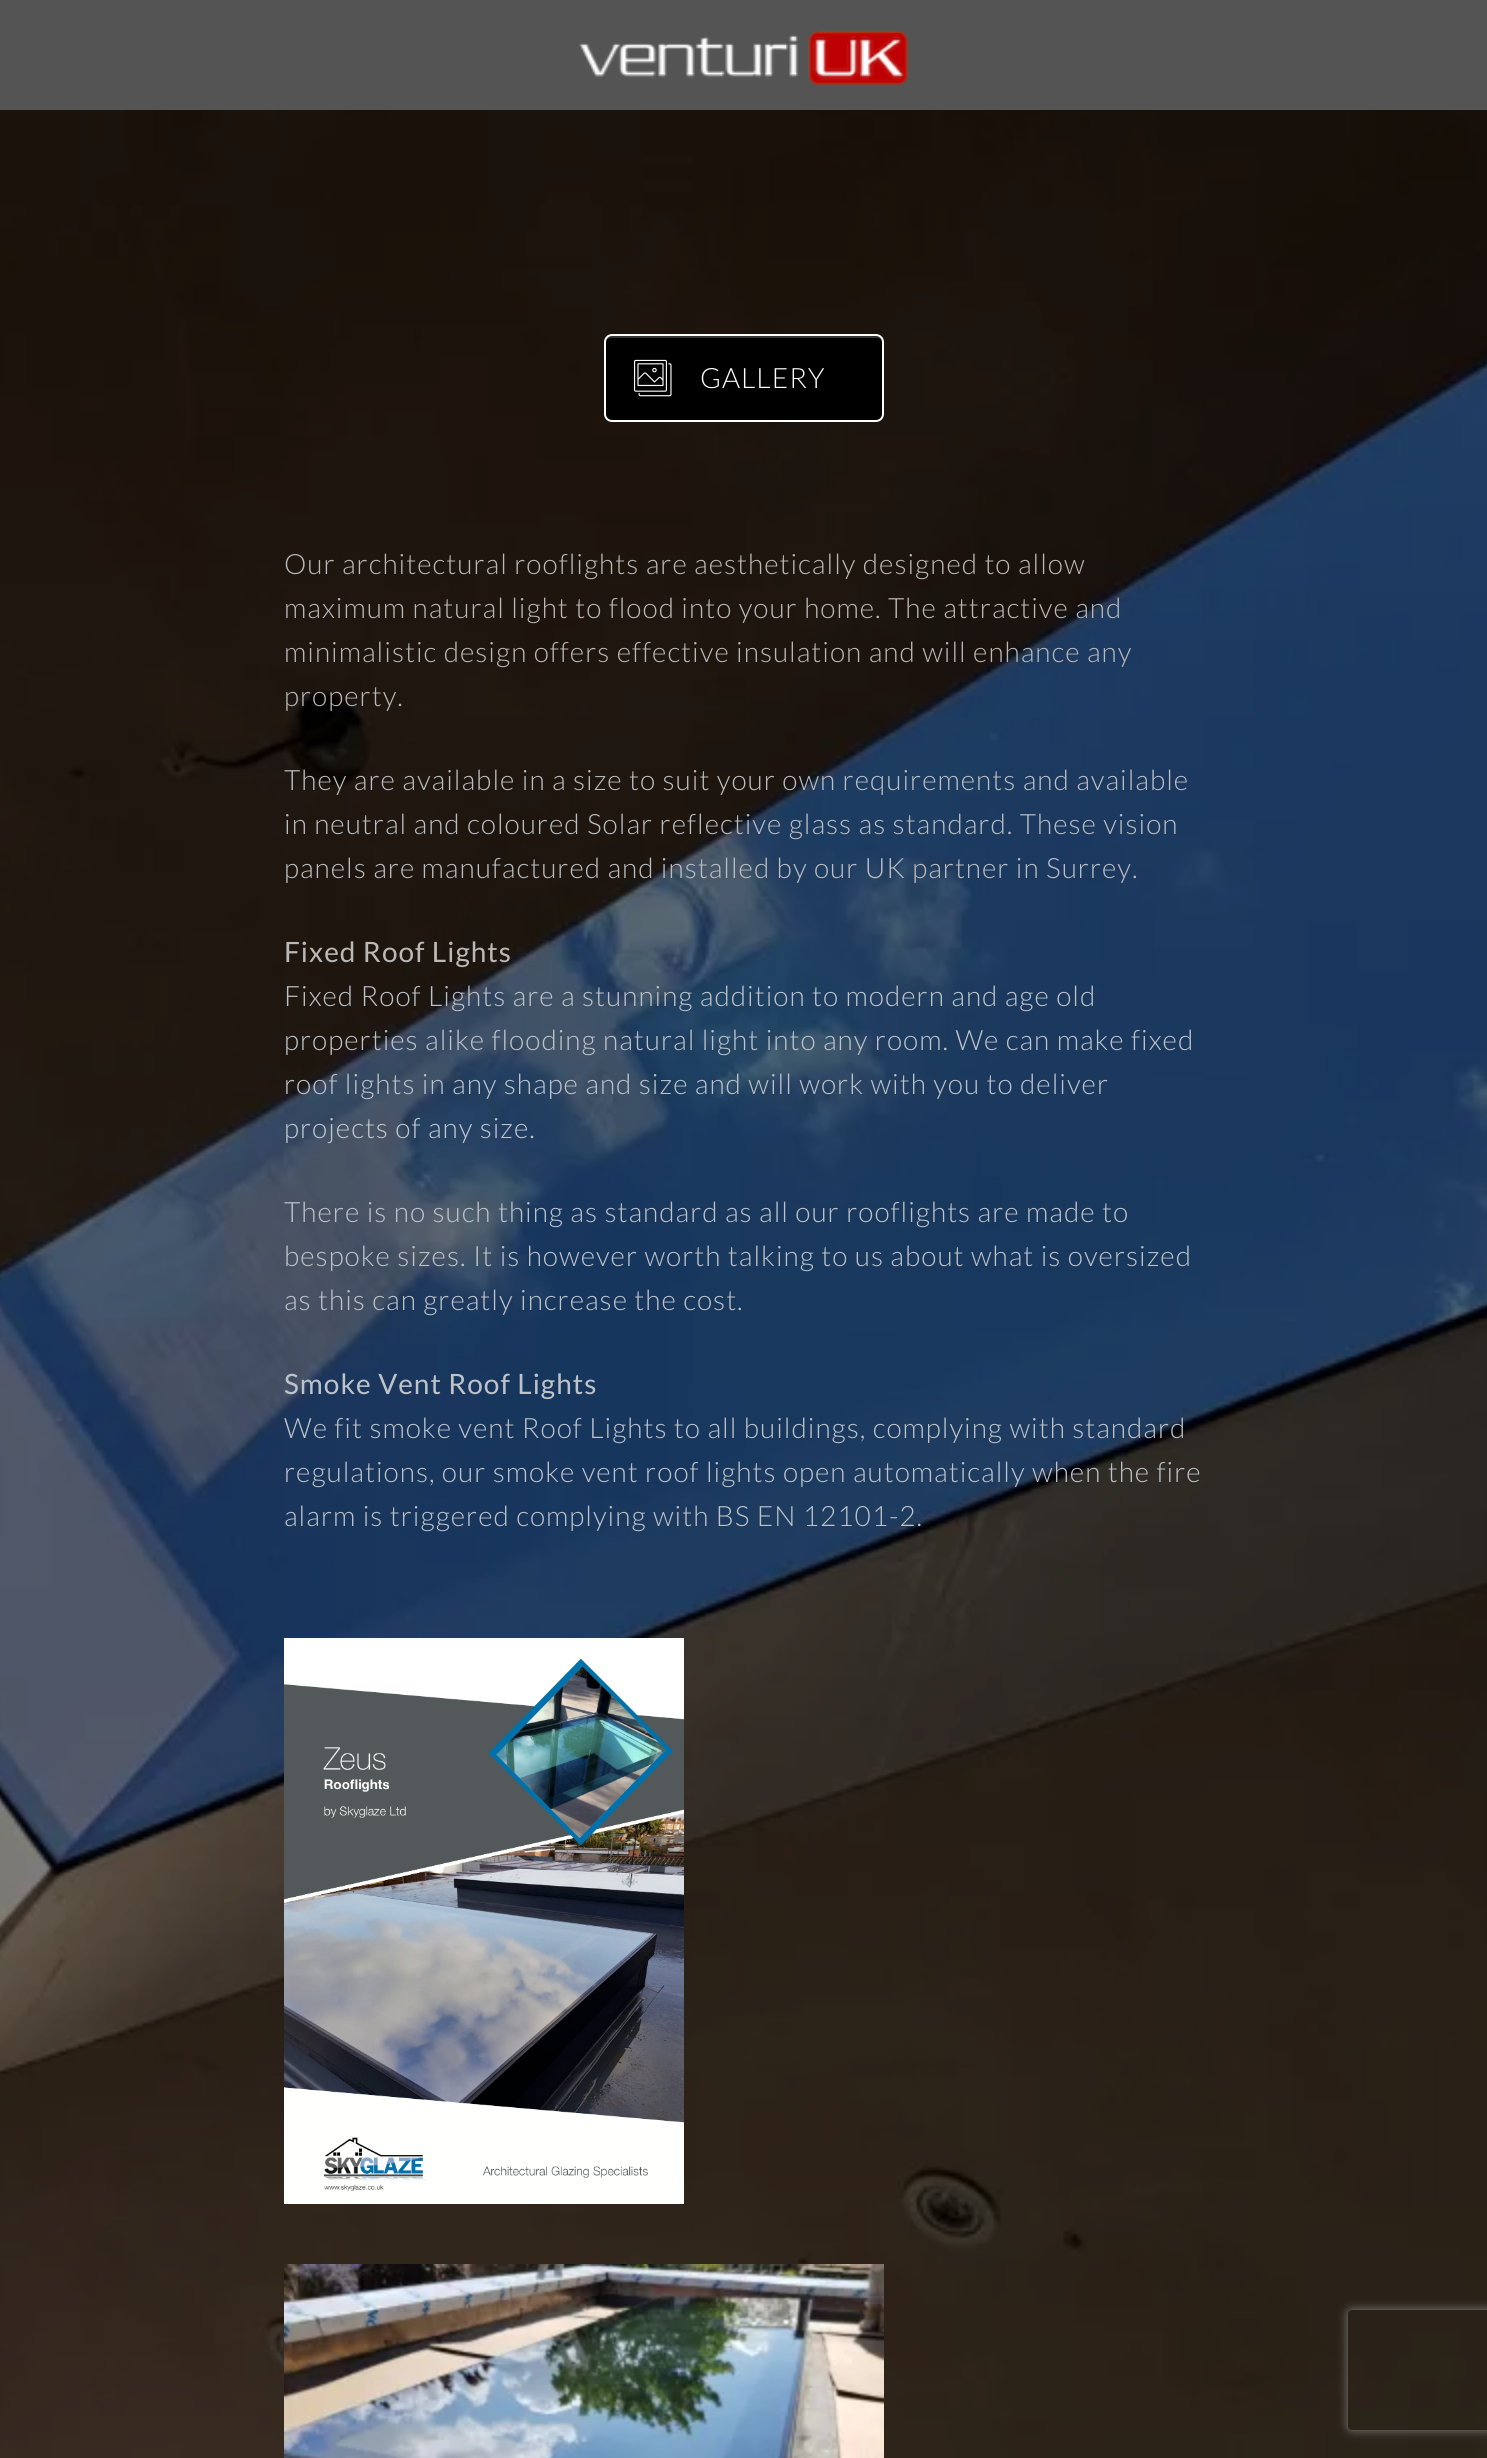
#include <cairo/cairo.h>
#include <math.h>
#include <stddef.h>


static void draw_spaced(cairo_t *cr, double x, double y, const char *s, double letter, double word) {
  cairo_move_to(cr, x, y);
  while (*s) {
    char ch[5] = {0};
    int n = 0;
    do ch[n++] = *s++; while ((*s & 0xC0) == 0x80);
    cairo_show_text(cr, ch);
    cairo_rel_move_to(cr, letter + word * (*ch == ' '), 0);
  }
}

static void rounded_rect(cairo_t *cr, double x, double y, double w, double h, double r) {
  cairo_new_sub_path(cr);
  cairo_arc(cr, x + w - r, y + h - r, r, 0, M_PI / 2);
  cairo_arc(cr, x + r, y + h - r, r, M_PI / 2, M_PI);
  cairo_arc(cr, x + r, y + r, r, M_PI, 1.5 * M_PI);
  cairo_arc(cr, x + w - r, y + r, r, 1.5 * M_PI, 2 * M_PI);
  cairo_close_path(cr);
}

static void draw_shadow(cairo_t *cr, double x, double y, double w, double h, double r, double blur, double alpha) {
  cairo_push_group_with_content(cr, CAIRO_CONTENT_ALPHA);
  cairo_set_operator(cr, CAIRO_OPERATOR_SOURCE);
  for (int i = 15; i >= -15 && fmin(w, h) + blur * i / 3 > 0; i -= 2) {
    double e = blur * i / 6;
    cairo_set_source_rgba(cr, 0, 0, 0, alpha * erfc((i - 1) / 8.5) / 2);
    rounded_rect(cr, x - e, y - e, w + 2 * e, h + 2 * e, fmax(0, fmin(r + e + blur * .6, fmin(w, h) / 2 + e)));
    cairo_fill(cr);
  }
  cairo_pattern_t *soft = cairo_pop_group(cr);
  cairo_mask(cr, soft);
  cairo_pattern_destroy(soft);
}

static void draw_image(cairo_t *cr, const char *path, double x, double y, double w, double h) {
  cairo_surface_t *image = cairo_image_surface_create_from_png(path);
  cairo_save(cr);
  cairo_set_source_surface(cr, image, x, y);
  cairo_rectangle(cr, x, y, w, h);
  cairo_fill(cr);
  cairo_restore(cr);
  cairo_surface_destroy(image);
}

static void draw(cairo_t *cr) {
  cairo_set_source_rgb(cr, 1, 1, 1);
  cairo_paint(cr);
  cairo_set_source_rgb(cr, 84 / 255.0, 84 / 255.0, 84 / 255.0);
  cairo_rectangle(cr, 0, 0, 1487, 110);
  cairo_fill(cr);
  draw_image(cr, "images/1.png", 579, 30, 331, 56);
  draw_image(cr, "images/2.png", 0, 110, 1487, 2348);
  cairo_set_source_rgb(cr, 0, 0, 0);
  rounded_rect(cr, 604, 334, 280, 88, 8);
  cairo_fill(cr);
  cairo_set_source_rgb(cr, 51 / 255.0, 51 / 255.0, 51 / 255.0);
  cairo_new_path(cr);
  cairo_move_to(cr, 611, 338);
  cairo_line_to(cr, 877, 338);
  cairo_curve_to(cr, 880, 338, 882, 340, 882, 343);
  cairo_line_to(cr, 882, 341);
  cairo_curve_to(cr, 882, 338, 880, 336, 877, 336);
  cairo_line_to(cr, 611, 336);
  cairo_curve_to(cr, 608, 336, 606, 338, 606, 341);
  cairo_line_to(cr, 606, 343);
  cairo_curve_to(cr, 606, 340, 608, 338, 611, 338);
  cairo_close_path(cr);
  cairo_fill(cr);
  rounded_rect(cr, 605, 335, 278, 86, 7);
  cairo_set_source_rgb(cr, 1, 1, 1);
  cairo_stroke(cr);
  draw_image(cr, "images/3.png", 634, 359, 38, 38);
  draw_image(cr, "images/4.png", 284, 1638, 400, 566);
  draw_image(cr, "images/5.png", 284, 2264, 600, 194);
  cairo_save(cr);
  cairo_set_fill_rule(cr, CAIRO_FILL_RULE_EVEN_ODD);
  cairo_new_path(cr);
  cairo_move_to(cr, 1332, 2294);
  cairo_line_to(cr, 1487, 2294);
  cairo_line_to(cr, 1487, 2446);
  cairo_line_to(cr, 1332, 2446);
  cairo_close_path(cr);
  cairo_move_to(cr, 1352, 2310);
  cairo_line_to(cr, 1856, 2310);
  cairo_curve_to(cr, 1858, 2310, 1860, 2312, 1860, 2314);
  cairo_line_to(cr, 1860, 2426);
  cairo_curve_to(cr, 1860, 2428, 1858, 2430, 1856, 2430);
  cairo_line_to(cr, 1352, 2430);
  cairo_curve_to(cr, 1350, 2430, 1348, 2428, 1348, 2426);
  cairo_line_to(cr, 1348, 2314);
  cairo_curve_to(cr, 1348, 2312, 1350, 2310, 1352, 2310);
  cairo_close_path(cr);
  cairo_clip(cr);
  cairo_set_source_rgb(cr, 128 / 255.0, 128 / 255.0, 128 / 255.0);
  draw_shadow(cr, 1348, 2310, 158, 120, 4, 5, 1);
  cairo_restore(cr);
  cairo_select_font_face(cr, "Lato Light", CAIRO_FONT_SLANT_NORMAL, CAIRO_FONT_WEIGHT_NORMAL);
  cairo_set_font_size(cr, 28);
  draw_spaced(cr, 700, 388, "GALLERY", 1, 0);
  cairo_set_source_rgb(cr, 187 / 255.0, 185 / 255.0, 183 / 255.0);
  draw_spaced(cr, 284, 574, "Our architectural rooflights are aesthetically designed to allow", 1, 0);
  draw_spaced(cr, 284, 618, "maximum natural light to flood into your home. The attractive and", 1, 0);
  draw_spaced(cr, 284, 662, "minimalistic design offers effective insulation and will enhance any", 1, 0);
  draw_spaced(cr, 284, 706, "property.", 1, 0);
  cairo_set_source_rgb(cr, 187 / 255.0, 190 / 255.0, 194 / 255.0);
  draw_spaced(cr, 284, 790, "They are available in a size to suit your own requirements and available", 1, 0);
  draw_spaced(cr, 284, 834, "in neutral and coloured Solar reflective glass as standard. These vision", 1, 0);
  draw_spaced(cr, 284, 878, "panels are manufactured and installed by our UK partner in Surrey.", 1, 0);
  cairo_select_font_face(cr, "Lato", CAIRO_FONT_SLANT_NORMAL, CAIRO_FONT_WEIGHT_NORMAL);
  cairo_set_source_rgb(cr, 187 / 255.0, 185 / 255.0, 183 / 255.0);
  draw_spaced(cr, 284, 962, "Fixed Roof Lights", 1, 0);
  cairo_select_font_face(cr, "Lato Light", CAIRO_FONT_SLANT_NORMAL, CAIRO_FONT_WEIGHT_NORMAL);
  cairo_set_source_rgb(cr, 190 / 255.0, 195 / 255.0, 202 / 255.0);
  draw_spaced(cr, 284, 1006, "Fixed Roof Lights are a stunning addition to modern and age old", 1, 0);
  draw_spaced(cr, 284, 1050, "properties alike flooding natural light into any room. We can make fixed", 1, 0);
  draw_spaced(cr, 284, 1094, "roof lights in any shape and size and will work with you to deliver", 1, 0);
  cairo_set_source_rgb(cr, 194 / 255.0, 200 / 255.0, 208 / 255.0);
  draw_spaced(cr, 284, 1138, "projects of any size.", 1, 0);
  cairo_set_source_rgb(cr, 190 / 255.0, 195 / 255.0, 202 / 255.0);
  draw_spaced(cr, 284, 1222, "There is no such thing as standard as all our rooflights are made to", 1, 0);
  draw_spaced(cr, 284, 1266, "bespoke sizes. It is however worth talking to us about what is oversized", 1, 0);
  draw_spaced(cr, 284, 1310, "as this can greatly increase the cost.", 1, 0);
  cairo_select_font_face(cr, "Lato", CAIRO_FONT_SLANT_NORMAL, CAIRO_FONT_WEIGHT_NORMAL);
  draw_spaced(cr, 284, 1394, "Smoke Vent Roof Lights", 1, 0);
  cairo_select_font_face(cr, "Lato Light", CAIRO_FONT_SLANT_NORMAL, CAIRO_FONT_WEIGHT_NORMAL);
  draw_spaced(cr, 284, 1438, "We fit smoke vent Roof Lights to all buildings, complying with standard", 1, 0);
  draw_spaced(cr, 284, 1482, "regulations, our smoke vent roof lights open automatically when the fire", 1, 0);
  draw_spaced(cr, 284, 1526, "alarm is triggered complying with BS EN 12101-2.", 1, 0);
}

int main(void) {
  cairo_surface_t *surface = cairo_image_surface_create(CAIRO_FORMAT_RGB24, 1487, 2458);
  cairo_t *cr = cairo_create(surface);
  cairo_font_options_t *options = cairo_font_options_create();
  cairo_font_options_set_hint_metrics(options, CAIRO_HINT_METRICS_OFF);
  cairo_font_options_set_hint_style(options, CAIRO_HINT_STYLE_NONE);
  cairo_set_font_options(cr, options);
  cairo_set_miter_limit(cr, 4);
  draw(cr);
  cairo_surface_write_to_png(surface, "out.png");
  cairo_font_options_destroy(options);
  cairo_destroy(cr);
  cairo_surface_destroy(surface);
  return 0;
}
